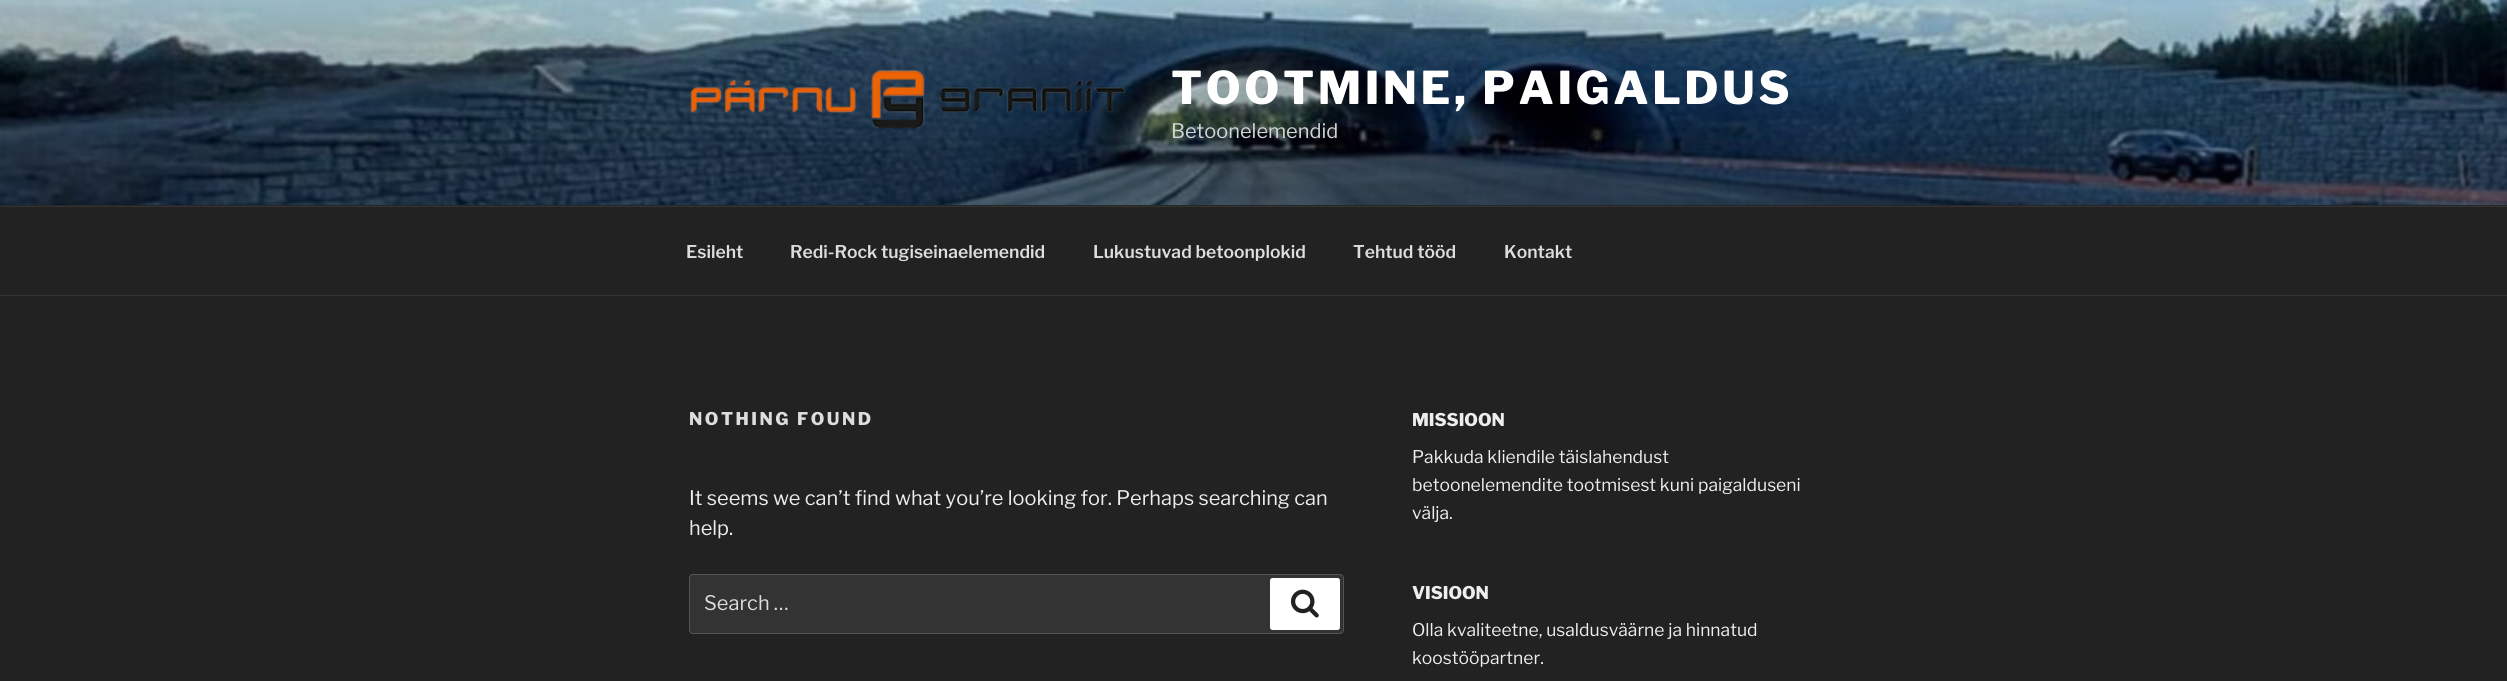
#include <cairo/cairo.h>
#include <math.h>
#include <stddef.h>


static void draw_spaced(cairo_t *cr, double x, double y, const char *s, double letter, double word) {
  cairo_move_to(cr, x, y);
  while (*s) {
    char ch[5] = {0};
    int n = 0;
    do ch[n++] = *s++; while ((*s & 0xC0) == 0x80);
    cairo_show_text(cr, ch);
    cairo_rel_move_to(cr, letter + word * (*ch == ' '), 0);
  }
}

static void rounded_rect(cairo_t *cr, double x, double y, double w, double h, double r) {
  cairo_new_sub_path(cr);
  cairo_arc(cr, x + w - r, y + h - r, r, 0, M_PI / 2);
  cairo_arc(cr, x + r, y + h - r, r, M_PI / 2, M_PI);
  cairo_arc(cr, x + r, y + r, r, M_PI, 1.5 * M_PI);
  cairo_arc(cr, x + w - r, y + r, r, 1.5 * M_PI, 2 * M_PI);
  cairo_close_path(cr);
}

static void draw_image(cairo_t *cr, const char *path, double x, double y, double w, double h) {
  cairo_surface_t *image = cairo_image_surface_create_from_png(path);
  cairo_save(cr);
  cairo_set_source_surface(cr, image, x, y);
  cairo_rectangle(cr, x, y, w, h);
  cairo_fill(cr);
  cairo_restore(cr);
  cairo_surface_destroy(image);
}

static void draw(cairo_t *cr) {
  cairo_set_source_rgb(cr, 34 / 255.0, 34 / 255.0, 34 / 255.0);
  cairo_paint(cr);
  cairo_set_source_rgb(cr, 38 / 255.0, 38 / 255.0, 38 / 255.0);
  cairo_rectangle(cr, 0, 205, 2507, 1);
  cairo_fill(cr);
  draw_image(cr, "images/1.png", 0, 0, 2507, 205);
  draw_image(cr, "images/2.png", 690, 69, 436, 60);
  cairo_set_source_rgb(cr, 51 / 255.0, 51 / 255.0, 51 / 255.0);
  cairo_rectangle(cr, 0, 206, 2507, 1);
  cairo_fill(cr);
  cairo_rectangle(cr, 0, 295, 2507, 1);
  cairo_fill(cr);
  rounded_rect(cr, 689.5, 574.5, 654, 59, 3.5);
  cairo_fill_preserve(cr);
  cairo_set_source_rgb(cr, 85 / 255.0, 85 / 255.0, 85 / 255.0);
  cairo_set_line_width(cr, 1);
  cairo_stroke(cr);
  cairo_set_source_rgb(cr, 1, 1, 1);
  rounded_rect(cr, 1270, 578, 70, 52, 2.5);
  cairo_fill(cr);
  draw_image(cr, "images/3.png", 1290, 589, 29, 29);
  cairo_select_font_face(cr, "Libre Franklin Thin", CAIRO_FONT_SLANT_NORMAL, CAIRO_FONT_WEIGHT_NORMAL);
  cairo_set_font_size(cr, 45);
  draw_spaced(cr, 1171, 104, "TOOTMINE, PAIGALDUS", 3.6, 0);
  cairo_select_font_face(cr, "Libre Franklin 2 Thin", CAIRO_FONT_SLANT_NORMAL, CAIRO_FONT_WEIGHT_NORMAL);
  cairo_set_font_size(cr, 20);
  cairo_set_source_rgb(cr, 210 / 255.0, 213 / 255.0, 213 / 255.0);
  cairo_move_to(cr, 1171, 138);
  cairo_show_text(cr, "Betoonelemendid");
  cairo_select_font_face(cr, "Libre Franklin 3 Thin", CAIRO_FONT_SLANT_NORMAL, CAIRO_FONT_WEIGHT_NORMAL);
  cairo_set_font_size(cr, 17.5);
  cairo_set_source_rgb(cr, 221 / 255.0, 221 / 255.0, 221 / 255.0);
  cairo_move_to(cr, 686, 258);
  cairo_show_text(cr, "Esileht");
  cairo_move_to(cr, 790, 258);
  cairo_show_text(cr, "Redi-Rock tugiseinaelemendid");
  cairo_move_to(cr, 1093, 258);
  cairo_show_text(cr, "Lukustuvad betoonplokid");
  cairo_move_to(cr, 1353, 258);
  cairo_show_text(cr, "Tehtud tööd");
  cairo_move_to(cr, 1504, 258);
  cairo_show_text(cr, "Kontakt");
  cairo_select_font_face(cr, "Libre Franklin Thin", CAIRO_FONT_SLANT_NORMAL, CAIRO_FONT_WEIGHT_NORMAL);
  draw_spaced(cr, 689, 425, "NOTHING FOUND", 2.5, 0);
  cairo_select_font_face(cr, "Libre Franklin 2 Thin", CAIRO_FONT_SLANT_NORMAL, CAIRO_FONT_WEIGHT_NORMAL);
  cairo_set_font_size(cr, 20);
  cairo_set_source_rgb(cr, 238 / 255.0, 238 / 255.0, 238 / 255.0);
  cairo_move_to(cr, 689, 505);
  cairo_show_text(cr, "It seems we can’t find what you’re looking for. Perhaps searching can");
  cairo_move_to(cr, 689, 535);
  cairo_show_text(cr, "help.");
  cairo_set_source_rgb(cr, 221 / 255.0, 221 / 255.0, 221 / 255.0);
  cairo_move_to(cr, 704, 610);
  cairo_show_text(cr, "Search …");
  cairo_select_font_face(cr, "Libre Franklin Thin", CAIRO_FONT_SLANT_NORMAL, CAIRO_FONT_WEIGHT_NORMAL);
  cairo_set_font_size(cr, 17.5);
  cairo_set_source_rgb(cr, 238 / 255.0, 238 / 255.0, 238 / 255.0);
  cairo_move_to(cr, 1412, 426);
  cairo_show_text(cr, "MISSIOON");
  cairo_select_font_face(cr, "Libre Franklin 2 Thin", CAIRO_FONT_SLANT_NORMAL, CAIRO_FONT_WEIGHT_NORMAL);
  cairo_move_to(cr, 1412, 463);
  cairo_show_text(cr, "Pakkuda kliendile täislahendust");
  cairo_move_to(cr, 1412, 491);
  cairo_show_text(cr, "betoonelemendite tootmisest kuni paigalduseni");
  cairo_move_to(cr, 1412, 519);
  cairo_show_text(cr, "välja.");
  cairo_select_font_face(cr, "Libre Franklin Thin", CAIRO_FONT_SLANT_NORMAL, CAIRO_FONT_WEIGHT_NORMAL);
  cairo_move_to(cr, 1412, 599);
  cairo_show_text(cr, "VISIOON");
  cairo_select_font_face(cr, "Libre Franklin 2 Thin", CAIRO_FONT_SLANT_NORMAL, CAIRO_FONT_WEIGHT_NORMAL);
  cairo_move_to(cr, 1412, 636);
  cairo_show_text(cr, "Olla kvaliteetne, usaldusväärne ja hinnatud");
  cairo_move_to(cr, 1412, 664);
  cairo_show_text(cr, "koostööpartner.");
}

int main(void) {
  cairo_surface_t *surface = cairo_image_surface_create(CAIRO_FORMAT_RGB24, 2507, 681);
  cairo_t *cr = cairo_create(surface);
  cairo_font_options_t *options = cairo_font_options_create();
  cairo_font_options_set_hint_metrics(options, CAIRO_HINT_METRICS_OFF);
  cairo_font_options_set_hint_style(options, CAIRO_HINT_STYLE_NONE);
  cairo_set_font_options(cr, options);
  cairo_set_miter_limit(cr, 4);
  draw(cr);
  cairo_surface_write_to_png(surface, "out.png");
  cairo_font_options_destroy(options);
  cairo_destroy(cr);
  cairo_surface_destroy(surface);
  return 0;
}
